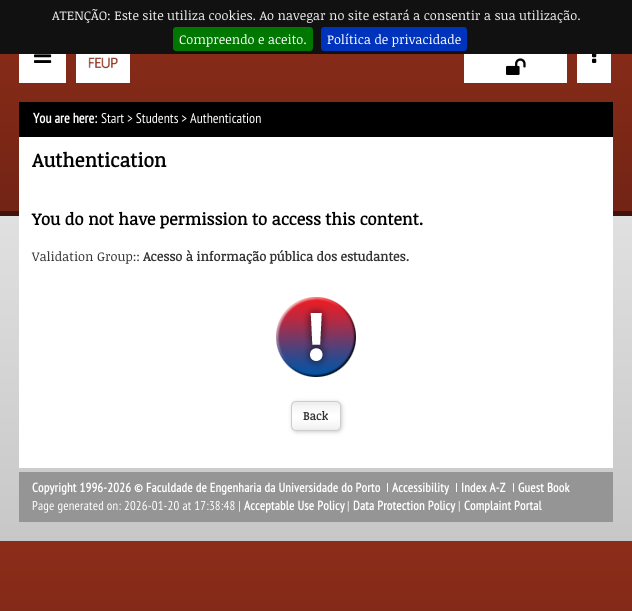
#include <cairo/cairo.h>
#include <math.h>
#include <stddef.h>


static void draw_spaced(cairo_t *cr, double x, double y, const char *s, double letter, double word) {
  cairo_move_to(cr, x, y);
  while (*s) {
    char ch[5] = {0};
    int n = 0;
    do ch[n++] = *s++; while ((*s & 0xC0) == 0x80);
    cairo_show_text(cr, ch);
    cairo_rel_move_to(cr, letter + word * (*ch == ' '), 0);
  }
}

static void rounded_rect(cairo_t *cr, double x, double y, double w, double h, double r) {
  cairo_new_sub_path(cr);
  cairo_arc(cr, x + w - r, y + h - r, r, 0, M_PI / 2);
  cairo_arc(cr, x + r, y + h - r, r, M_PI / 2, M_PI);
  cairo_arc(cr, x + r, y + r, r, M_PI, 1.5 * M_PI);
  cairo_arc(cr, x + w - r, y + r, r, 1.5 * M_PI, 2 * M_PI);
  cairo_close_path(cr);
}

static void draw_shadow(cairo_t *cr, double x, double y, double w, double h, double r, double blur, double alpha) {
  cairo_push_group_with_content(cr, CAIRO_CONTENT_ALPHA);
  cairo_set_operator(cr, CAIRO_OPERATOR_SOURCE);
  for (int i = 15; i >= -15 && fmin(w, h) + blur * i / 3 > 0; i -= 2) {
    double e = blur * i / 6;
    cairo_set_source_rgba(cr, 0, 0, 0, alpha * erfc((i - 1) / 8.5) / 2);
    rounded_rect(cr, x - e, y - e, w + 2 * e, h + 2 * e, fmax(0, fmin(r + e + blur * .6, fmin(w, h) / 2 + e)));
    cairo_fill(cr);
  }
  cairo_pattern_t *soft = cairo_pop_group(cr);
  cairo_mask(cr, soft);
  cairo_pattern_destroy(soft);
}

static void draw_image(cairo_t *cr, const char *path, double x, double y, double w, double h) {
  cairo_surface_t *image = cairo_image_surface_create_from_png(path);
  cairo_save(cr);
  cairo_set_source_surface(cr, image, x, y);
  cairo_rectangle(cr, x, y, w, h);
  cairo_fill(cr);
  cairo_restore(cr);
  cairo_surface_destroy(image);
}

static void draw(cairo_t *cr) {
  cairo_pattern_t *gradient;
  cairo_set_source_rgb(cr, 1, 1, 1);
  cairo_paint(cr);
  gradient = cairo_pattern_create_linear(316, 0, 316, 541);
  cairo_pattern_add_color_stop_rgba(gradient, 0, 140 / 255.0, 45 / 255.0, 25 / 255.0, 1);
  cairo_pattern_add_color_stop_rgba(gradient, 0.39, 115 / 255.0, 36 / 255.0, 21 / 255.0, 1);
  cairo_pattern_add_color_stop_rgba(gradient, 0.39, 64 / 255.0, 20 / 255.0, 11 / 255.0, 1);
  cairo_pattern_add_color_stop_rgba(gradient, 0.4, 64 / 255.0, 20 / 255.0, 11 / 255.0, 1);
  cairo_pattern_add_color_stop_rgba(gradient, 0.4, 224 / 255.0, 224 / 255.0, 224 / 255.0, 1);
  cairo_pattern_add_color_stop_rgba(gradient, 1, 199 / 255.0, 199 / 255.0, 199 / 255.0, 1);
  cairo_set_source(cr, gradient);
  cairo_pattern_destroy(gradient);
  cairo_rectangle(cr, 0, 54, 632, 487);
  cairo_fill(cr);
  gradient = cairo_pattern_create_linear(316, 541, 316, 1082);
  cairo_pattern_add_color_stop_rgba(gradient, 0, 140 / 255.0, 45 / 255.0, 25 / 255.0, 1);
  cairo_pattern_add_color_stop_rgba(gradient, 0.39, 115 / 255.0, 36 / 255.0, 21 / 255.0, 1);
  cairo_pattern_add_color_stop_rgba(gradient, 0.39, 64 / 255.0, 20 / 255.0, 11 / 255.0, 1);
  cairo_pattern_add_color_stop_rgba(gradient, 0.4, 64 / 255.0, 20 / 255.0, 11 / 255.0, 1);
  cairo_pattern_add_color_stop_rgba(gradient, 0.4, 224 / 255.0, 224 / 255.0, 224 / 255.0, 1);
  cairo_pattern_add_color_stop_rgba(gradient, 1, 199 / 255.0, 199 / 255.0, 199 / 255.0, 1);
  cairo_set_source(cr, gradient);
  cairo_pattern_destroy(gradient);
  cairo_rectangle(cr, 0, 541, 632, 70);
  cairo_fill(cr);
  cairo_set_source_rgb(cr, 17 / 255.0, 17 / 255.0, 17 / 255.0);
  cairo_rectangle(cr, 0, 0, 632, 54);
  cairo_fill(cr);
  cairo_set_source_rgb(cr, 0, 119 / 255.0, 0);
  rounded_rect(cr, 173, 27, 140, 24, 3);
  cairo_fill(cr);
  cairo_set_source_rgb(cr, 0, 51 / 255.0, 187 / 255.0);
  rounded_rect(cr, 321, 27, 146, 24, 3);
  cairo_fill(cr);
  cairo_set_source_rgb(cr, 1, 1, 1);
  cairo_rectangle(cr, 19, 54, 47, 29);
  cairo_fill(cr);
  draw_image(cr, "images/1.png", 34, 54, 18, 9);
  cairo_rectangle(cr, 76, 54, 54, 29);
  cairo_fill(cr);
  draw_image(cr, "images/2.png", 88, 54, 30, 15);
  cairo_rectangle(cr, 464, 54, 103, 29);
  cairo_fill(cr);
  draw_image(cr, "images/3.png", 506, 58, 20, 17);
  cairo_rectangle(cr, 577, 54, 34, 29);
  cairo_fill(cr);
  draw_image(cr, "images/4.png", 592, 54, 5, 9);
  cairo_set_source_rgb(cr, 0, 0, 0);
  cairo_rectangle(cr, 19, 102, 594, 35);
  cairo_fill(cr);
  cairo_set_source_rgb(cr, 1, 1, 1);
  cairo_rectangle(cr, 19, 137, 594, 331);
  cairo_fill(cr);
  draw_image(cr, "images/5.png", 276, 297, 80, 80);
  cairo_set_source_rgb(cr, 204 / 255.0, 204 / 255.0, 204 / 255.0);
  draw_shadow(cr, 292, 402, 50, 30, 5, 2, 1);
  cairo_set_source_rgb(cr, 239 / 255.0, 239 / 255.0, 239 / 255.0);
  rounded_rect(cr, 291, 401, 50, 30, 5);
  cairo_fill(cr);
  draw_image(cr, "images/6.png", 291, 405, 50, 23);
  rounded_rect(cr, 291.5, 401.5, 49, 29, 4.5);
  cairo_set_source_rgb(cr, 204 / 255.0, 204 / 255.0, 204 / 255.0);
  cairo_set_line_width(cr, 1);
  cairo_stroke(cr);
  cairo_set_source_rgb(cr, 149 / 255.0, 149 / 255.0, 149 / 255.0);
  cairo_rectangle(cr, 19, 472, 594, 50);
  cairo_fill(cr);
  cairo_select_font_face(cr, "Noticia Text", CAIRO_FONT_SLANT_NORMAL, CAIRO_FONT_WEIGHT_NORMAL);
  cairo_set_font_size(cr, 12.8);
  cairo_set_source_rgb(cr, 238 / 255.0, 238 / 255.0, 238 / 255.0);
  cairo_move_to(cr, 52, 20);
  cairo_show_text(cr, "ATENÇÃO: Este site utiliza cookies. Ao navegar no site estará a consentir a sua utilização.");
  cairo_set_source_rgb(cr, 1, 1, 1);
  cairo_move_to(cr, 179, 44);
  cairo_show_text(cr, "Compreendo e aceito.");
  cairo_move_to(cr, 327, 44);
  cairo_show_text(cr, "Política de privacidade");
  cairo_select_font_face(cr, "PT Sans Narrow", CAIRO_FONT_SLANT_NORMAL, CAIRO_FONT_WEIGHT_BOLD);
  cairo_set_font_size(cr, 14);
  cairo_move_to(cr, 33, 123);
  cairo_show_text(cr, "You are here:");
  cairo_select_font_face(cr, "PT Sans Narrow", CAIRO_FONT_SLANT_NORMAL, CAIRO_FONT_WEIGHT_NORMAL);
  cairo_move_to(cr, 101, 123);
  cairo_show_text(cr, "Start > Students > Authentication");
  cairo_select_font_face(cr, "Noticia Text", CAIRO_FONT_SLANT_NORMAL, CAIRO_FONT_WEIGHT_BOLD);
  cairo_set_font_size(cr, 19.25);
  cairo_set_source_rgb(cr, 0, 0, 0);
  cairo_move_to(cr, 32, 167);
  cairo_show_text(cr, "Authentication");
  cairo_set_font_size(cr, 16.6);
  cairo_move_to(cr, 32, 225);
  cairo_show_text(cr, "You do not have permission to access this content.");
  cairo_select_font_face(cr, "Noticia Text", CAIRO_FONT_SLANT_NORMAL, CAIRO_FONT_WEIGHT_NORMAL);
  cairo_set_font_size(cr, 12.8);
  cairo_set_source_rgb(cr, 51 / 255.0, 51 / 255.0, 51 / 255.0);
  cairo_move_to(cr, 32, 261);
  cairo_show_text(cr, "Validation Group::");
  cairo_select_font_face(cr, "Noticia Text", CAIRO_FONT_SLANT_NORMAL, CAIRO_FONT_WEIGHT_BOLD);
  cairo_move_to(cr, 143, 261);
  cairo_show_text(cr, "Acesso à informação pública dos estudantes.");
  cairo_set_font_size(cr, 11.5);
  cairo_move_to(cr, 303, 420);
  cairo_show_text(cr, "Back");
  cairo_select_font_face(cr, "PT Sans Narrow", CAIRO_FONT_SLANT_NORMAL, CAIRO_FONT_WEIGHT_BOLD);
  cairo_set_font_size(cr, 12.8);
  cairo_set_source_rgb(cr, 1, 1, 1);
  draw_spaced(cr, 32, 492, "Copyright 1996-2026 © Faculdade de Engenharia da Universidade do Porto", 0.2, 0);
  cairo_select_font_face(cr, "PT Sans Narrow", CAIRO_FONT_SLANT_NORMAL, CAIRO_FONT_WEIGHT_NORMAL);
  draw_spaced(cr, 386, 492, "I", 0.2, 0);
  cairo_select_font_face(cr, "PT Sans Narrow", CAIRO_FONT_SLANT_NORMAL, CAIRO_FONT_WEIGHT_BOLD);
  draw_spaced(cr, 392, 492, "Accessibility", 0.2, 0);
  cairo_select_font_face(cr, "PT Sans Narrow", CAIRO_FONT_SLANT_NORMAL, CAIRO_FONT_WEIGHT_NORMAL);
  draw_spaced(cr, 455, 492, "I", 0.2, 0);
  cairo_select_font_face(cr, "PT Sans Narrow", CAIRO_FONT_SLANT_NORMAL, CAIRO_FONT_WEIGHT_BOLD);
  draw_spaced(cr, 461, 492, "Index A-Z", 0.2, 0);
  cairo_select_font_face(cr, "PT Sans Narrow", CAIRO_FONT_SLANT_NORMAL, CAIRO_FONT_WEIGHT_NORMAL);
  draw_spaced(cr, 512, 492, "I", 0.2, 0);
  cairo_select_font_face(cr, "PT Sans Narrow", CAIRO_FONT_SLANT_NORMAL, CAIRO_FONT_WEIGHT_BOLD);
  draw_spaced(cr, 518, 492, "Guest Book", 0.2, 0);
  cairo_select_font_face(cr, "PT Sans Narrow", CAIRO_FONT_SLANT_NORMAL, CAIRO_FONT_WEIGHT_NORMAL);
  draw_spaced(cr, 32, 510, "Page generated on: 2026-01-20 at 17:38:48 |", 0.2, 0);
  cairo_select_font_face(cr, "PT Sans Narrow", CAIRO_FONT_SLANT_NORMAL, CAIRO_FONT_WEIGHT_BOLD);
  draw_spaced(cr, 244, 510, "Acceptable Use Policy", 0.2, 0);
  cairo_select_font_face(cr, "PT Sans Narrow", CAIRO_FONT_SLANT_NORMAL, CAIRO_FONT_WEIGHT_NORMAL);
  draw_spaced(cr, 347, 510, "|", 0.2, 0);
  cairo_select_font_face(cr, "PT Sans Narrow", CAIRO_FONT_SLANT_NORMAL, CAIRO_FONT_WEIGHT_BOLD);
  draw_spaced(cr, 353, 510, "Data Protection Policy", 0.2, 0);
  cairo_select_font_face(cr, "PT Sans Narrow", CAIRO_FONT_SLANT_NORMAL, CAIRO_FONT_WEIGHT_NORMAL);
  draw_spaced(cr, 458, 510, "|", 0.2, 0);
  cairo_select_font_face(cr, "PT Sans Narrow", CAIRO_FONT_SLANT_NORMAL, CAIRO_FONT_WEIGHT_BOLD);
  draw_spaced(cr, 464, 510, "Complaint Portal", 0.2, 0);
}

int main(void) {
  cairo_surface_t *surface = cairo_image_surface_create(CAIRO_FORMAT_RGB24, 632, 611);
  cairo_t *cr = cairo_create(surface);
  cairo_font_options_t *options = cairo_font_options_create();
  cairo_font_options_set_hint_metrics(options, CAIRO_HINT_METRICS_OFF);
  cairo_font_options_set_hint_style(options, CAIRO_HINT_STYLE_NONE);
  cairo_set_font_options(cr, options);
  cairo_set_miter_limit(cr, 4);
  draw(cr);
  cairo_surface_write_to_png(surface, "out.png");
  cairo_font_options_destroy(options);
  cairo_destroy(cr);
  cairo_surface_destroy(surface);
  return 0;
}
